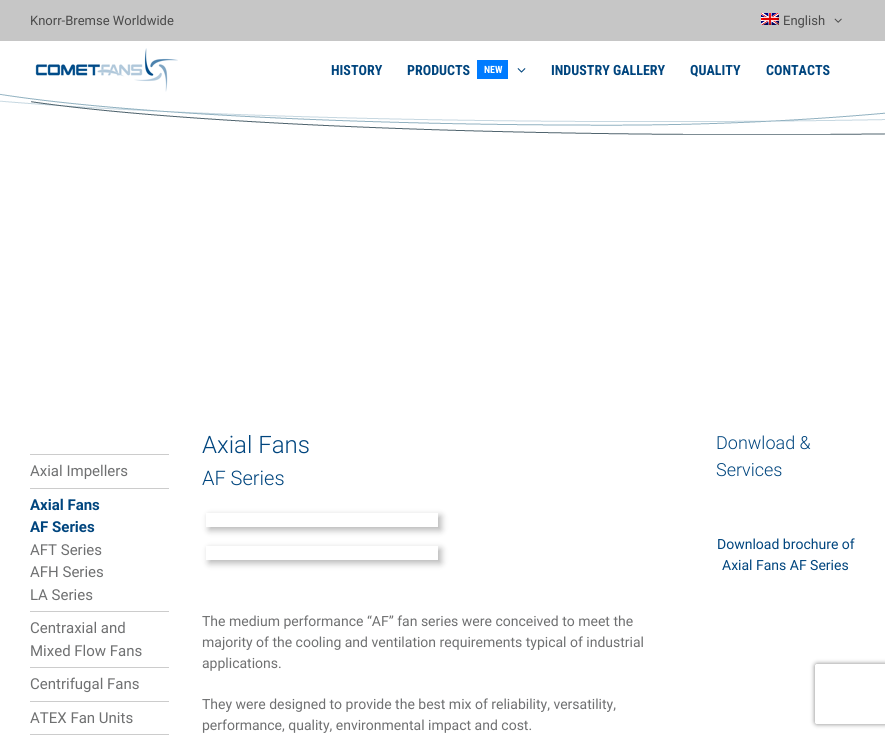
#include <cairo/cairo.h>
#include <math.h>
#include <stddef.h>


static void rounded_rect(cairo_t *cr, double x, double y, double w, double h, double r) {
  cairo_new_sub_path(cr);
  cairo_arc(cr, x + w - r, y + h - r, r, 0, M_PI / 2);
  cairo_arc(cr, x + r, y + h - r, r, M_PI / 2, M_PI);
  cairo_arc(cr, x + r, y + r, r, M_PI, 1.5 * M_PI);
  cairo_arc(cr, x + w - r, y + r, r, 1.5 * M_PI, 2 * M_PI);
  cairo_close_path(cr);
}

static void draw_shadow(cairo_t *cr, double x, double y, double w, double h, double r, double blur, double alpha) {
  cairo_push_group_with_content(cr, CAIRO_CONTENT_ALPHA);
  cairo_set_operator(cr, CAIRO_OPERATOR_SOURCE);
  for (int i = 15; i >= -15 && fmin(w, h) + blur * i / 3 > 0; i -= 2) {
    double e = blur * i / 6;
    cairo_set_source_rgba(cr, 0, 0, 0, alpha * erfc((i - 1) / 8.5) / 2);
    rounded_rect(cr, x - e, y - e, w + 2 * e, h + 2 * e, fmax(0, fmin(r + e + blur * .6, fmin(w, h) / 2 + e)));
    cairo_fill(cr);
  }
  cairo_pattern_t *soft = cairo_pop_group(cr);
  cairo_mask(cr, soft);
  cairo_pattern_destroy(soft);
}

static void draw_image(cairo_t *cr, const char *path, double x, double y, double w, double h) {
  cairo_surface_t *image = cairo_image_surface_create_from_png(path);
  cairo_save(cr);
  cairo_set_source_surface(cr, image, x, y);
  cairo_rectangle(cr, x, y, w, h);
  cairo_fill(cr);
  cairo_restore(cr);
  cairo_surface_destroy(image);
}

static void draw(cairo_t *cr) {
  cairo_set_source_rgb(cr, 1, 1, 1);
  cairo_paint(cr);
  cairo_set_source_rgb(cr, 198 / 255.0, 198 / 255.0, 198 / 255.0);
  cairo_rectangle(cr, 0, 0, 885, 41);
  cairo_fill(cr);
  draw_image(cr, "images/1.png", 761, 13, 18, 12);
  draw_image(cr, "images/2.png", 834, 18, 8, 5);
  draw_image(cr, "images/5.png", 0, 70, 885, 65);
  draw_image(cr, "images/3.png", 35, 48, 143, 44);
  cairo_set_source_rgb(cr, 0, 123 / 255.0, 1);
  cairo_rectangle(cr, 477, 60, 31, 19);
  cairo_fill(cr);
  draw_image(cr, "images/4.png", 517, 68, 9, 5);
  cairo_set_source_rgb(cr, 204 / 255.0, 204 / 255.0, 204 / 255.0);
  cairo_rectangle(cr, 30, 454, 139, 1);
  cairo_fill(cr);
  cairo_rectangle(cr, 30, 488, 139, 1);
  cairo_fill(cr);
  cairo_rectangle(cr, 30, 611, 139, 1);
  cairo_fill(cr);
  cairo_rectangle(cr, 30, 667, 139, 1);
  cairo_fill(cr);
  cairo_rectangle(cr, 30, 701, 139, 1);
  cairo_fill(cr);
  cairo_rectangle(cr, 30, 734, 139, 1);
  cairo_fill(cr);
  cairo_save(cr);
  cairo_set_fill_rule(cr, CAIRO_FILL_RULE_EVEN_ODD);
  cairo_new_path(cr);
  cairo_move_to(cr, 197, 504);
  cairo_line_to(cr, 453, 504);
  cairo_line_to(cr, 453, 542);
  cairo_line_to(cr, 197, 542);
  cairo_close_path(cr);
  cairo_move_to(cr, 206, 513);
  cairo_line_to(cr, 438, 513);
  cairo_line_to(cr, 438, 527);
  cairo_line_to(cr, 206, 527);
  cairo_close_path(cr);
  cairo_clip(cr);
  cairo_set_source_rgb(cr, 0, 0, 0);
  draw_shadow(cr, 209, 516, 232, 14, 0, 3.5, 0.3);
  cairo_restore(cr);
  cairo_save(cr);
  cairo_set_fill_rule(cr, CAIRO_FILL_RULE_EVEN_ODD);
  cairo_new_path(cr);
  cairo_move_to(cr, 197, 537);
  cairo_line_to(cr, 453, 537);
  cairo_line_to(cr, 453, 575);
  cairo_line_to(cr, 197, 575);
  cairo_close_path(cr);
  cairo_move_to(cr, 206, 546);
  cairo_line_to(cr, 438, 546);
  cairo_line_to(cr, 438, 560);
  cairo_line_to(cr, 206, 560);
  cairo_close_path(cr);
  cairo_clip(cr);
  cairo_set_source_rgb(cr, 0, 0, 0);
  draw_shadow(cr, 209, 549, 232, 14, 0, 3.5, 0.3);
  cairo_restore(cr);
  cairo_save(cr);
  cairo_set_fill_rule(cr, CAIRO_FILL_RULE_EVEN_ODD);
  cairo_new_path(cr);
  cairo_move_to(cr, 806, 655);
  cairo_line_to(cr, 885, 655);
  cairo_line_to(cr, 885, 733);
  cairo_line_to(cr, 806, 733);
  cairo_close_path(cr);
  cairo_move_to(cr, 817, 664);
  cairo_line_to(cr, 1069, 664);
  cairo_curve_to(cr, 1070, 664, 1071, 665, 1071, 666);
  cairo_line_to(cr, 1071, 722);
  cairo_curve_to(cr, 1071, 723, 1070, 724, 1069, 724);
  cairo_line_to(cr, 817, 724);
  cairo_curve_to(cr, 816, 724, 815, 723, 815, 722);
  cairo_line_to(cr, 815, 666);
  cairo_curve_to(cr, 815, 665, 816, 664, 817, 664);
  cairo_close_path(cr);
  cairo_clip(cr);
  cairo_set_source_rgb(cr, 128 / 255.0, 128 / 255.0, 128 / 255.0);
  draw_shadow(cr, 815, 664, 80, 60, 2, 2.5, 1);
  cairo_restore(cr);
  cairo_select_font_face(cr, "Roboto", CAIRO_FONT_SLANT_NORMAL, CAIRO_FONT_WEIGHT_NORMAL);
  cairo_set_font_size(cr, 13);
  cairo_set_source_rgb(cr, 74 / 255.0, 74 / 255.0, 74 / 255.0);
  cairo_move_to(cr, 30, 25);
  cairo_show_text(cr, "Knorr-Bremse Worldwide");
  cairo_move_to(cr, 783, 25);
  cairo_show_text(cr, "English");
  cairo_select_font_face(cr, "Roboto Condensed", CAIRO_FONT_SLANT_NORMAL, CAIRO_FONT_WEIGHT_BOLD);
  cairo_set_font_size(cr, 14);
  cairo_set_source_rgb(cr, 0, 69 / 255.0, 126 / 255.0);
  cairo_move_to(cr, 331, 75);
  cairo_show_text(cr, "HISTORY");
  cairo_move_to(cr, 407, 75);
  cairo_show_text(cr, "PRODUCTS");
  cairo_set_font_size(cr, 10);
  cairo_set_source_rgb(cr, 1, 1, 1);
  cairo_move_to(cr, 484, 73);
  cairo_show_text(cr, "NEW");
  cairo_set_font_size(cr, 14);
  cairo_set_source_rgb(cr, 0, 69 / 255.0, 126 / 255.0);
  cairo_move_to(cr, 551, 75);
  cairo_show_text(cr, "INDUSTRY GALLERY");
  cairo_move_to(cr, 690, 75);
  cairo_show_text(cr, "QUALITY");
  cairo_move_to(cr, 766, 75);
  cairo_show_text(cr, "CONTACTS");
  cairo_select_font_face(cr, "Roboto", CAIRO_FONT_SLANT_NORMAL, CAIRO_FONT_WEIGHT_NORMAL);
  cairo_set_font_size(cr, 15);
  cairo_set_source_rgb(cr, 111 / 255.0, 112 / 255.0, 113 / 255.0);
  cairo_move_to(cr, 30, 476);
  cairo_show_text(cr, "Axial Impellers");
  cairo_select_font_face(cr, "Roboto", CAIRO_FONT_SLANT_NORMAL, CAIRO_FONT_WEIGHT_BOLD);
  cairo_set_source_rgb(cr, 0, 69 / 255.0, 126 / 255.0);
  cairo_move_to(cr, 30, 510);
  cairo_show_text(cr, "Axial Fans");
  cairo_move_to(cr, 30, 532);
  cairo_show_text(cr, "AF Series");
  cairo_select_font_face(cr, "Roboto", CAIRO_FONT_SLANT_NORMAL, CAIRO_FONT_WEIGHT_NORMAL);
  cairo_set_source_rgb(cr, 111 / 255.0, 112 / 255.0, 113 / 255.0);
  cairo_move_to(cr, 30, 555);
  cairo_show_text(cr, "AFT Series");
  cairo_move_to(cr, 30, 577);
  cairo_show_text(cr, "AFH Series");
  cairo_move_to(cr, 30, 600);
  cairo_show_text(cr, "LA Series");
  cairo_move_to(cr, 30, 633);
  cairo_show_text(cr, "Centraxial and");
  cairo_move_to(cr, 30, 656);
  cairo_show_text(cr, "Mixed Flow Fans");
  cairo_move_to(cr, 30, 689);
  cairo_show_text(cr, "Centrifugal Fans");
  cairo_move_to(cr, 30, 723);
  cairo_show_text(cr, "ATEX Fan Units");
  cairo_select_font_face(cr, "Roboto Light", CAIRO_FONT_SLANT_NORMAL, CAIRO_FONT_WEIGHT_NORMAL);
  cairo_set_font_size(cr, 24);
  cairo_set_source_rgb(cr, 0, 69 / 255.0, 126 / 255.0);
  cairo_move_to(cr, 202, 453);
  cairo_show_text(cr, "Axial Fans");
  cairo_set_font_size(cr, 20);
  cairo_move_to(cr, 202, 485);
  cairo_show_text(cr, "AF Series");
  cairo_select_font_face(cr, "Roboto", CAIRO_FONT_SLANT_NORMAL, CAIRO_FONT_WEIGHT_NORMAL);
  cairo_set_font_size(cr, 14);
  cairo_set_source_rgb(cr, 111 / 255.0, 112 / 255.0, 113 / 255.0);
  cairo_move_to(cr, 202, 626);
  cairo_show_text(cr, "The medium performance “AF” fan series were conceived to meet the");
  cairo_move_to(cr, 202, 647);
  cairo_show_text(cr, "majority of the cooling and ventilation requirements typical of industrial");
  cairo_move_to(cr, 202, 668);
  cairo_show_text(cr, "applications.");
  cairo_move_to(cr, 202, 709);
  cairo_show_text(cr, "They were designed to provide the best mix of reliability, versatility,");
  cairo_move_to(cr, 202, 730);
  cairo_show_text(cr, "performance, quality, environmental impact and cost.");
  cairo_select_font_face(cr, "Roboto Light", CAIRO_FONT_SLANT_NORMAL, CAIRO_FONT_WEIGHT_NORMAL);
  cairo_set_font_size(cr, 18);
  cairo_set_source_rgb(cr, 0, 69 / 255.0, 126 / 255.0);
  cairo_move_to(cr, 716, 449);
  cairo_show_text(cr, "Donwload &");
  cairo_move_to(cr, 716, 476);
  cairo_show_text(cr, "Services");
  cairo_select_font_face(cr, "Roboto", CAIRO_FONT_SLANT_NORMAL, CAIRO_FONT_WEIGHT_NORMAL);
  cairo_set_font_size(cr, 14);
  cairo_move_to(cr, 717, 549);
  cairo_show_text(cr, "Download brochure of");
  cairo_move_to(cr, 722, 570);
  cairo_show_text(cr, "Axial Fans AF Series");
}

int main(void) {
  cairo_surface_t *surface = cairo_image_surface_create(CAIRO_FORMAT_RGB24, 885, 738);
  cairo_t *cr = cairo_create(surface);
  cairo_font_options_t *options = cairo_font_options_create();
  cairo_font_options_set_hint_metrics(options, CAIRO_HINT_METRICS_OFF);
  cairo_font_options_set_hint_style(options, CAIRO_HINT_STYLE_NONE);
  cairo_set_font_options(cr, options);
  cairo_set_miter_limit(cr, 4);
  draw(cr);
  cairo_surface_write_to_png(surface, "out.png");
  cairo_font_options_destroy(options);
  cairo_destroy(cr);
  cairo_surface_destroy(surface);
  return 0;
}
